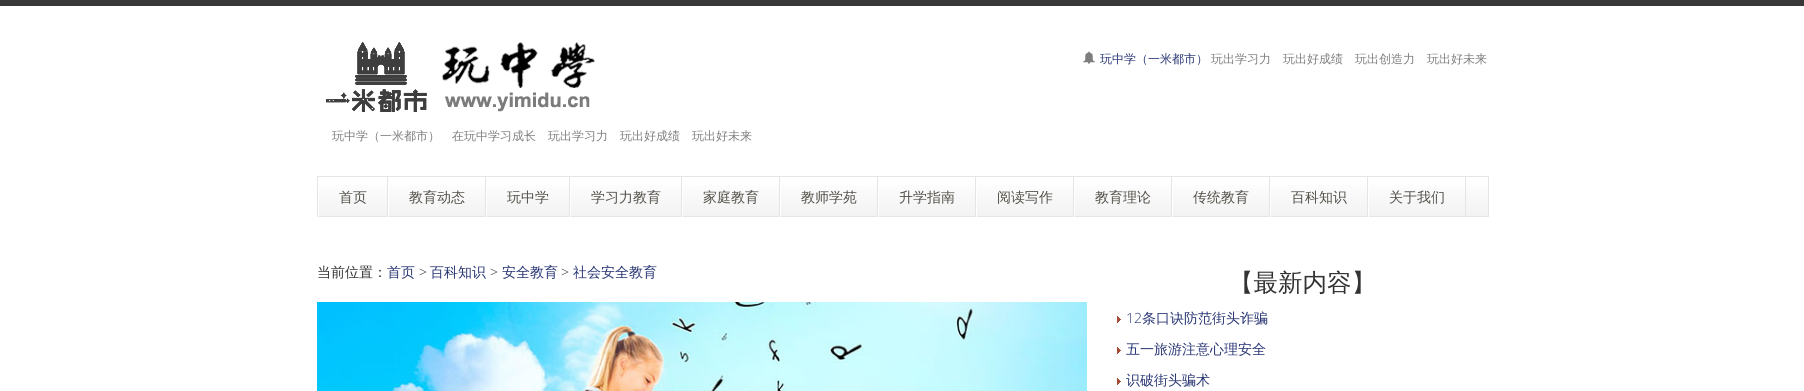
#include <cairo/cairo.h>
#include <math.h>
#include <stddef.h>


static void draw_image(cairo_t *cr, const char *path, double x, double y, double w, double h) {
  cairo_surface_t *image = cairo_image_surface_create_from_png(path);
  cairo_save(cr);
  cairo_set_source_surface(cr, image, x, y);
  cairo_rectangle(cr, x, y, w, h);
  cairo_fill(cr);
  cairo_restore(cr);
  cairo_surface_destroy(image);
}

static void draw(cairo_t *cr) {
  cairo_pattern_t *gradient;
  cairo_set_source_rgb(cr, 1, 1, 1);
  cairo_paint(cr);
  cairo_set_source_rgb(cr, 56 / 255.0, 56 / 255.0, 56 / 255.0);
  cairo_rectangle(cr, 0, 0, 1804, 6);
  cairo_fill(cr);
  draw_image(cr, "images/1.png", 1083, 51, 12, 13);
  draw_image(cr, "images/2.png", 326, 42, 269, 70);
  gradient = cairo_pattern_create_linear(903, 177, 903, 216);
  cairo_pattern_add_color_stop_rgba(gradient, 0, 1, 1, 1, 1);
  cairo_pattern_add_color_stop_rgba(gradient, 1, 242 / 255.0, 242 / 255.0, 242 / 255.0, 1);
  cairo_set_source(cr, gradient);
  cairo_pattern_destroy(gradient);
  cairo_rectangle(cr, 319, 185, 1169, 31);
  cairo_fill(cr);
  cairo_rectangle(cr, 317.5, 176.5, 1171, 40);
  cairo_set_source_rgb(cr, 229 / 255.0, 229 / 255.0, 229 / 255.0);
  cairo_set_line_width(cr, 1);
  cairo_stroke(cr);
  cairo_rectangle(cr, 387, 177, 1, 40);
  cairo_fill(cr);
  cairo_set_source_rgb(cr, 1, 1, 1);
  cairo_rectangle(cr, 318, 216, 1, 1);
  cairo_fill(cr);
  cairo_set_source_rgb(cr, 229 / 255.0, 229 / 255.0, 229 / 255.0);
  cairo_rectangle(cr, 485, 177, 1, 40);
  cairo_fill(cr);
  cairo_set_source_rgb(cr, 1, 1, 1);
  cairo_rectangle(cr, 388, 177, 1, 40);
  cairo_fill(cr);
  cairo_set_source_rgb(cr, 229 / 255.0, 229 / 255.0, 229 / 255.0);
  cairo_rectangle(cr, 569, 177, 1, 40);
  cairo_fill(cr);
  cairo_set_source_rgb(cr, 1, 1, 1);
  cairo_rectangle(cr, 486, 177, 1, 40);
  cairo_fill(cr);
  cairo_set_source_rgb(cr, 229 / 255.0, 229 / 255.0, 229 / 255.0);
  cairo_rectangle(cr, 681, 177, 1, 40);
  cairo_fill(cr);
  cairo_set_source_rgb(cr, 1, 1, 1);
  cairo_rectangle(cr, 570, 177, 1, 40);
  cairo_fill(cr);
  cairo_set_source_rgb(cr, 229 / 255.0, 229 / 255.0, 229 / 255.0);
  cairo_rectangle(cr, 779, 177, 1, 40);
  cairo_fill(cr);
  cairo_set_source_rgb(cr, 1, 1, 1);
  cairo_rectangle(cr, 682, 177, 1, 40);
  cairo_fill(cr);
  cairo_set_source_rgb(cr, 229 / 255.0, 229 / 255.0, 229 / 255.0);
  cairo_rectangle(cr, 877, 177, 1, 40);
  cairo_fill(cr);
  cairo_set_source_rgb(cr, 1, 1, 1);
  cairo_rectangle(cr, 780, 177, 1, 40);
  cairo_fill(cr);
  cairo_set_source_rgb(cr, 229 / 255.0, 229 / 255.0, 229 / 255.0);
  cairo_rectangle(cr, 975, 177, 1, 40);
  cairo_fill(cr);
  cairo_set_source_rgb(cr, 1, 1, 1);
  cairo_rectangle(cr, 878, 177, 1, 40);
  cairo_fill(cr);
  cairo_set_source_rgb(cr, 229 / 255.0, 229 / 255.0, 229 / 255.0);
  cairo_rectangle(cr, 1073, 177, 1, 40);
  cairo_fill(cr);
  cairo_set_source_rgb(cr, 1, 1, 1);
  cairo_rectangle(cr, 976, 177, 1, 40);
  cairo_fill(cr);
  cairo_set_source_rgb(cr, 229 / 255.0, 229 / 255.0, 229 / 255.0);
  cairo_rectangle(cr, 1171, 177, 1, 40);
  cairo_fill(cr);
  cairo_set_source_rgb(cr, 1, 1, 1);
  cairo_rectangle(cr, 1074, 177, 1, 40);
  cairo_fill(cr);
  cairo_set_source_rgb(cr, 229 / 255.0, 229 / 255.0, 229 / 255.0);
  cairo_rectangle(cr, 1269, 177, 1, 40);
  cairo_fill(cr);
  cairo_set_source_rgb(cr, 1, 1, 1);
  cairo_rectangle(cr, 1172, 177, 1, 40);
  cairo_fill(cr);
  cairo_set_source_rgb(cr, 229 / 255.0, 229 / 255.0, 229 / 255.0);
  cairo_rectangle(cr, 1367, 177, 1, 40);
  cairo_fill(cr);
  cairo_set_source_rgb(cr, 1, 1, 1);
  cairo_rectangle(cr, 1270, 177, 1, 40);
  cairo_fill(cr);
  cairo_set_source_rgb(cr, 229 / 255.0, 229 / 255.0, 229 / 255.0);
  cairo_rectangle(cr, 1465, 177, 1, 40);
  cairo_fill(cr);
  cairo_set_source_rgb(cr, 1, 1, 1);
  cairo_rectangle(cr, 1368, 177, 1, 40);
  cairo_fill(cr);
  draw_image(cr, "images/3.png", 317, 302, 770, 89);
  draw_image(cr, "images/4.png", 1117, 316, 4, 7);
  draw_image(cr, "images/4.png", 1117, 347, 4, 7);
  draw_image(cr, "images/4.png", 1117, 378, 4, 7);
  cairo_select_font_face(cr, "WenQuanYi Zen Hei Medium", CAIRO_FONT_SLANT_NORMAL, CAIRO_FONT_WEIGHT_NORMAL);
  cairo_set_font_size(cr, 12);
  cairo_set_source_rgb(cr, 41 / 255.0, 54 / 255.0, 116 / 255.0);
  cairo_move_to(cr, 1100, 63);
  cairo_show_text(cr, "玩中学（一米都市）");
  cairo_set_source_rgb(cr, 126 / 255.0, 126 / 255.0, 126 / 255.0);
  cairo_move_to(cr, 1211, 63);
  cairo_show_text(cr, "玩出学习力　玩出好成绩　玩出创造力　玩出好未来");
  cairo_move_to(cr, 332, 140);
  cairo_show_text(cr, "玩中学（一米都市）　在玩中学习成长　玩出学习力　玩出好成绩　玩出好未来");
  cairo_set_font_size(cr, 14);
  cairo_set_source_rgb(cr, 83 / 255.0, 80 / 255.0, 73 / 255.0);
  cairo_move_to(cr, 339, 202);
  cairo_show_text(cr, "首页");
  cairo_move_to(cr, 409, 202);
  cairo_show_text(cr, "教育动态");
  cairo_move_to(cr, 507, 202);
  cairo_show_text(cr, "玩中学");
  cairo_move_to(cr, 591, 202);
  cairo_show_text(cr, "学习力教育");
  cairo_move_to(cr, 703, 202);
  cairo_show_text(cr, "家庭教育");
  cairo_move_to(cr, 801, 202);
  cairo_show_text(cr, "教师学苑");
  cairo_move_to(cr, 899, 202);
  cairo_show_text(cr, "升学指南");
  cairo_move_to(cr, 997, 202);
  cairo_show_text(cr, "阅读写作");
  cairo_move_to(cr, 1095, 202);
  cairo_show_text(cr, "教育理论");
  cairo_move_to(cr, 1193, 202);
  cairo_show_text(cr, "传统教育");
  cairo_move_to(cr, 1291, 202);
  cairo_show_text(cr, "百科知识");
  cairo_move_to(cr, 1389, 202);
  cairo_show_text(cr, "关于我们");
  cairo_set_source_rgb(cr, 51 / 255.0, 51 / 255.0, 51 / 255.0);
  cairo_move_to(cr, 317, 277);
  cairo_show_text(cr, "当前位置：");
  cairo_set_source_rgb(cr, 41 / 255.0, 54 / 255.0, 116 / 255.0);
  cairo_move_to(cr, 387, 277);
  cairo_show_text(cr, "首页");
  cairo_select_font_face(cr, "Open Sans Light", CAIRO_FONT_SLANT_NORMAL, CAIRO_FONT_WEIGHT_NORMAL);
  cairo_set_source_rgb(cr, 51 / 255.0, 51 / 255.0, 51 / 255.0);
  cairo_move_to(cr, 419, 277);
  cairo_show_text(cr, ">");
  cairo_select_font_face(cr, "WenQuanYi Zen Hei Medium", CAIRO_FONT_SLANT_NORMAL, CAIRO_FONT_WEIGHT_NORMAL);
  cairo_set_source_rgb(cr, 41 / 255.0, 54 / 255.0, 116 / 255.0);
  cairo_move_to(cr, 430, 277);
  cairo_show_text(cr, "百科知识");
  cairo_select_font_face(cr, "Open Sans Light", CAIRO_FONT_SLANT_NORMAL, CAIRO_FONT_WEIGHT_NORMAL);
  cairo_set_source_rgb(cr, 51 / 255.0, 51 / 255.0, 51 / 255.0);
  cairo_move_to(cr, 490, 277);
  cairo_show_text(cr, ">");
  cairo_select_font_face(cr, "WenQuanYi Zen Hei Medium", CAIRO_FONT_SLANT_NORMAL, CAIRO_FONT_WEIGHT_NORMAL);
  cairo_set_source_rgb(cr, 41 / 255.0, 54 / 255.0, 116 / 255.0);
  cairo_move_to(cr, 502, 277);
  cairo_show_text(cr, "安全教育");
  cairo_select_font_face(cr, "Open Sans Light", CAIRO_FONT_SLANT_NORMAL, CAIRO_FONT_WEIGHT_NORMAL);
  cairo_set_source_rgb(cr, 51 / 255.0, 51 / 255.0, 51 / 255.0);
  cairo_move_to(cr, 561, 277);
  cairo_show_text(cr, ">");
  cairo_select_font_face(cr, "WenQuanYi Zen Hei Medium", CAIRO_FONT_SLANT_NORMAL, CAIRO_FONT_WEIGHT_NORMAL);
  cairo_set_source_rgb(cr, 41 / 255.0, 54 / 255.0, 116 / 255.0);
  cairo_move_to(cr, 573, 277);
  cairo_show_text(cr, "社会安全教育");
  cairo_set_font_size(cr, 24.5);
  cairo_set_source_rgb(cr, 51 / 255.0, 51 / 255.0, 51 / 255.0);
  cairo_move_to(cr, 1229, 291);
  cairo_show_text(cr, "【最新内容】");
  cairo_select_font_face(cr, "Open Sans Light", CAIRO_FONT_SLANT_NORMAL, CAIRO_FONT_WEIGHT_NORMAL);
  cairo_set_font_size(cr, 14);
  cairo_set_source_rgb(cr, 41 / 255.0, 54 / 255.0, 116 / 255.0);
  cairo_move_to(cr, 1126, 323);
  cairo_show_text(cr, "12");
  cairo_select_font_face(cr, "WenQuanYi Zen Hei Medium", CAIRO_FONT_SLANT_NORMAL, CAIRO_FONT_WEIGHT_NORMAL);
  cairo_move_to(cr, 1142, 323);
  cairo_show_text(cr, "条口诀防范街头诈骗");
  cairo_move_to(cr, 1126, 354);
  cairo_show_text(cr, "五一旅游注意心理安全");
  cairo_move_to(cr, 1126, 385);
  cairo_show_text(cr, "识破街头骗术");
}

int main(void) {
  cairo_surface_t *surface = cairo_image_surface_create(CAIRO_FORMAT_RGB24, 1804, 391);
  cairo_t *cr = cairo_create(surface);
  cairo_font_options_t *options = cairo_font_options_create();
  cairo_font_options_set_hint_metrics(options, CAIRO_HINT_METRICS_OFF);
  cairo_font_options_set_hint_style(options, CAIRO_HINT_STYLE_NONE);
  cairo_set_font_options(cr, options);
  cairo_set_miter_limit(cr, 4);
  draw(cr);
  cairo_surface_write_to_png(surface, "out.png");
  cairo_font_options_destroy(options);
  cairo_destroy(cr);
  cairo_surface_destroy(surface);
  return 0;
}
